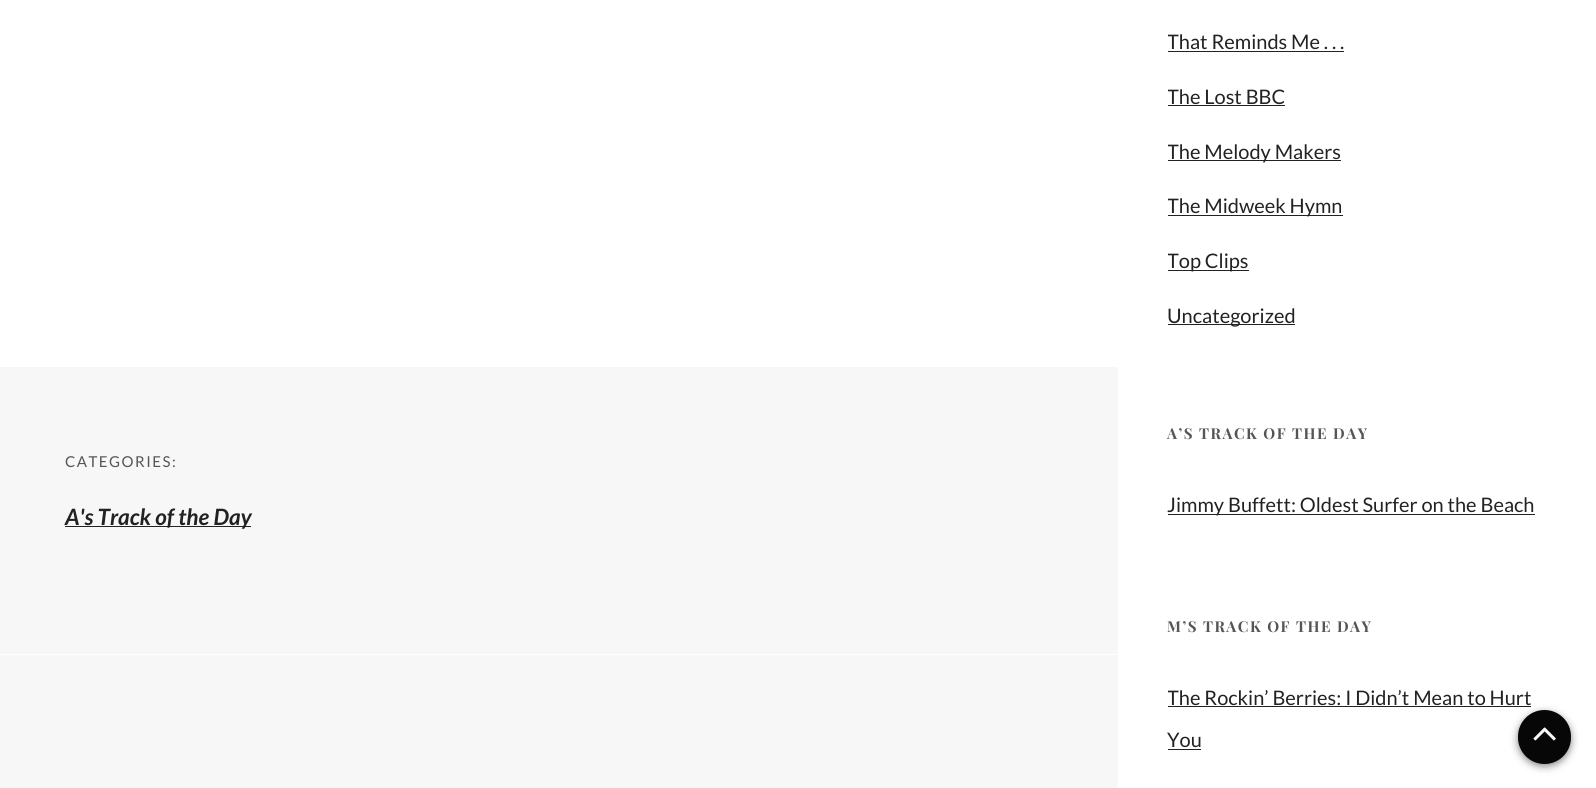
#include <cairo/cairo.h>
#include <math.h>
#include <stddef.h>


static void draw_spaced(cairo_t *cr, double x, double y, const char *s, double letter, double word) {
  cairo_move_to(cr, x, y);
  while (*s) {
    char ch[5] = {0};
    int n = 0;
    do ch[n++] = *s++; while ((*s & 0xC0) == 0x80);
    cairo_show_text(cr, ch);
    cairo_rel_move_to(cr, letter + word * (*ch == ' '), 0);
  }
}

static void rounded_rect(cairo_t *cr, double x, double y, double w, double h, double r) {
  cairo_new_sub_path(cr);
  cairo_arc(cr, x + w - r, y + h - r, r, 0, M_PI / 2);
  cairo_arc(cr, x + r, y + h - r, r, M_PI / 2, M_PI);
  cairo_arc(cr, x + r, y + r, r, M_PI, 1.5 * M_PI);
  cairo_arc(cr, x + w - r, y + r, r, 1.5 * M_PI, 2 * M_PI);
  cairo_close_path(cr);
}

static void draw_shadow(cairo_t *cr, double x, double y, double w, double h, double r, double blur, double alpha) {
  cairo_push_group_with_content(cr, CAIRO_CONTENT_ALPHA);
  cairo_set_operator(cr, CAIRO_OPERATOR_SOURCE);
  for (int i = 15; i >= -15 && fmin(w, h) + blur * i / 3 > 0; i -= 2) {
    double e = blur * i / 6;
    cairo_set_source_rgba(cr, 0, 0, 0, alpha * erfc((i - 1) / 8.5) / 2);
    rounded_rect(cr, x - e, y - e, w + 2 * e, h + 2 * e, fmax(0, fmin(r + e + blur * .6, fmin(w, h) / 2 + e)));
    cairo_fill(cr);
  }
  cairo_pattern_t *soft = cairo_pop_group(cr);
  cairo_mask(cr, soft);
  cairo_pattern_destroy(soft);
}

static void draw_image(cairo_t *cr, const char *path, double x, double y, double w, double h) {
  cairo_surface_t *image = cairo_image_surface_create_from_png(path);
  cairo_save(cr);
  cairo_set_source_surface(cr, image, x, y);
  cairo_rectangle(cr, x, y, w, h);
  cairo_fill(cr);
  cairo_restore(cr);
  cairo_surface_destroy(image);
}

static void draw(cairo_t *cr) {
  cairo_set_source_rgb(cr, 1, 1, 1);
  cairo_paint(cr);
  cairo_set_source_rgb(cr, 247 / 255.0, 247 / 255.0, 247 / 255.0);
  cairo_rectangle(cr, 0, 367, 1118, 421);
  cairo_fill(cr);
  cairo_set_source_rgb(cr, 34 / 255.0, 34 / 255.0, 34 / 255.0);
  cairo_rectangle(cr, 65, 526, 186, 1);
  cairo_fill(cr);
  cairo_set_source_rgb(cr, 1, 1, 1);
  cairo_rectangle(cr, 0, 654, 1118, 1);
  cairo_fill(cr);
  cairo_set_source_rgb(cr, 34 / 255.0, 34 / 255.0, 34 / 255.0);
  cairo_rectangle(cr, 1168, 51, 176, 1);
  cairo_fill(cr);
  cairo_rectangle(cr, 1168, 105, 117, 1);
  cairo_fill(cr);
  cairo_rectangle(cr, 1168, 160, 173, 1);
  cairo_fill(cr);
  cairo_rectangle(cr, 1168, 215, 175, 1);
  cairo_fill(cr);
  cairo_rectangle(cr, 1168, 270, 81, 1);
  cairo_fill(cr);
  cairo_rectangle(cr, 1168, 324, 127, 1);
  cairo_fill(cr);
  cairo_rectangle(cr, 1168, 514, 367, 1);
  cairo_fill(cr);
  cairo_rectangle(cr, 1168, 706, 363, 1);
  cairo_fill(cr);
  cairo_rectangle(cr, 1168, 749, 33, 1);
  cairo_fill(cr);
  cairo_set_source_rgb(cr, 7 / 255.0, 7 / 255.0, 7 / 255.0);
  draw_shadow(cr, 1518, 713, 53, 53, 26.5, 4, 0.5);
  cairo_set_source_rgb(cr, 7 / 255.0, 7 / 255.0, 7 / 255.0);
  rounded_rect(cr, 1518, 710, 53, 54, 26.5);
  cairo_fill(cr);
  draw_image(cr, "images/1.png", 1533, 727, 23, 14);
  cairo_select_font_face(cr, "Lato", CAIRO_FONT_SLANT_NORMAL, CAIRO_FONT_WEIGHT_NORMAL);
  cairo_set_font_size(cr, 15);
  cairo_set_source_rgb(cr, 85 / 255.0, 85 / 255.0, 85 / 255.0);
  draw_spaced(cr, 65, 467, "CATEGORIES:", 1.5, 0);
  cairo_select_font_face(cr, "Lato", CAIRO_FONT_SLANT_ITALIC, CAIRO_FONT_WEIGHT_BOLD);
  cairo_set_font_size(cr, 22.5);
  cairo_set_source_rgb(cr, 34 / 255.0, 34 / 255.0, 34 / 255.0);
  cairo_move_to(cr, 65, 525);
  cairo_show_text(cr, "A's Track of the Day");
  cairo_save(cr);
  cairo_rectangle(cr, 1168, 21, 378, 42);
  cairo_clip(cr);
  cairo_select_font_face(cr, "Lato", CAIRO_FONT_SLANT_NORMAL, CAIRO_FONT_WEIGHT_NORMAL);
  cairo_set_font_size(cr, 20);
  cairo_move_to(cr, 1167, 49);
  cairo_show_text(cr, "That Reminds Me . . .");
  cairo_restore(cr);
  cairo_save(cr);
  cairo_rectangle(cr, 1168, 75, 378, 43);
  cairo_clip(cr);
  cairo_select_font_face(cr, "Lato", CAIRO_FONT_SLANT_NORMAL, CAIRO_FONT_WEIGHT_NORMAL);
  cairo_set_font_size(cr, 20);
  cairo_move_to(cr, 1167, 104);
  cairo_show_text(cr, "The Lost BBC");
  cairo_restore(cr);
  cairo_save(cr);
  cairo_rectangle(cr, 1168, 130, 378, 43);
  cairo_clip(cr);
  cairo_select_font_face(cr, "Lato", CAIRO_FONT_SLANT_NORMAL, CAIRO_FONT_WEIGHT_NORMAL);
  cairo_set_font_size(cr, 20);
  cairo_move_to(cr, 1167, 159);
  cairo_show_text(cr, "The Melody Makers");
  cairo_restore(cr);
  cairo_save(cr);
  cairo_rectangle(cr, 1168, 185, 378, 43);
  cairo_clip(cr);
  cairo_select_font_face(cr, "Lato", CAIRO_FONT_SLANT_NORMAL, CAIRO_FONT_WEIGHT_NORMAL);
  cairo_set_font_size(cr, 20);
  cairo_move_to(cr, 1167, 213);
  cairo_show_text(cr, "The Midweek Hymn");
  cairo_restore(cr);
  cairo_save(cr);
  cairo_rectangle(cr, 1168, 240, 378, 41);
  cairo_clip(cr);
  cairo_select_font_face(cr, "Lato", CAIRO_FONT_SLANT_NORMAL, CAIRO_FONT_WEIGHT_NORMAL);
  cairo_set_font_size(cr, 20);
  cairo_move_to(cr, 1167, 268);
  cairo_show_text(cr, "Top Clips");
  cairo_restore(cr);
  cairo_select_font_face(cr, "Lato", CAIRO_FONT_SLANT_NORMAL, CAIRO_FONT_WEIGHT_NORMAL);
  cairo_set_font_size(cr, 20);
  cairo_move_to(cr, 1167, 323);
  cairo_show_text(cr, "Uncategorized");
  cairo_select_font_face(cr, "Playfair Display", CAIRO_FONT_SLANT_NORMAL, CAIRO_FONT_WEIGHT_BOLD);
  cairo_set_font_size(cr, 15);
  cairo_set_source_rgb(cr, 85 / 255.0, 85 / 255.0, 85 / 255.0);
  draw_spaced(cr, 1167, 439, "A’S TRACK OF THE DAY", 1.5, 0);
  cairo_select_font_face(cr, "Lato", CAIRO_FONT_SLANT_NORMAL, CAIRO_FONT_WEIGHT_NORMAL);
  cairo_set_font_size(cr, 20);
  cairo_set_source_rgb(cr, 34 / 255.0, 34 / 255.0, 34 / 255.0);
  cairo_move_to(cr, 1167, 512);
  cairo_show_text(cr, "Jimmy Buffett: Oldest Surfer on the Beach");
  cairo_select_font_face(cr, "Playfair Display", CAIRO_FONT_SLANT_NORMAL, CAIRO_FONT_WEIGHT_BOLD);
  cairo_set_font_size(cr, 15);
  cairo_set_source_rgb(cr, 85 / 255.0, 85 / 255.0, 85 / 255.0);
  draw_spaced(cr, 1167, 632, "M’S TRACK OF THE DAY", 1.5, 0);
  cairo_save(cr);
  cairo_rectangle(cr, 1168, 676, 378, 84);
  cairo_clip(cr);
  cairo_select_font_face(cr, "Lato", CAIRO_FONT_SLANT_NORMAL, CAIRO_FONT_WEIGHT_NORMAL);
  cairo_set_font_size(cr, 20);
  cairo_set_source_rgb(cr, 34 / 255.0, 34 / 255.0, 34 / 255.0);
  cairo_move_to(cr, 1167, 705);
  cairo_show_text(cr, "The Rockin’ Berries: I Didn’t Mean to Hurt");
  cairo_restore(cr);
  cairo_select_font_face(cr, "Lato", CAIRO_FONT_SLANT_NORMAL, CAIRO_FONT_WEIGHT_NORMAL);
  cairo_set_font_size(cr, 20);
  cairo_set_source_rgb(cr, 34 / 255.0, 34 / 255.0, 34 / 255.0);
  cairo_move_to(cr, 1167, 747);
  cairo_show_text(cr, "You");
}

int main(void) {
  cairo_surface_t *surface = cairo_image_surface_create(CAIRO_FORMAT_RGB24, 1596, 788);
  cairo_t *cr = cairo_create(surface);
  cairo_font_options_t *options = cairo_font_options_create();
  cairo_font_options_set_hint_metrics(options, CAIRO_HINT_METRICS_OFF);
  cairo_font_options_set_hint_style(options, CAIRO_HINT_STYLE_NONE);
  cairo_set_font_options(cr, options);
  cairo_set_miter_limit(cr, 4);
  draw(cr);
  cairo_surface_write_to_png(surface, "out.png");
  cairo_font_options_destroy(options);
  cairo_destroy(cr);
  cairo_surface_destroy(surface);
  return 0;
}
